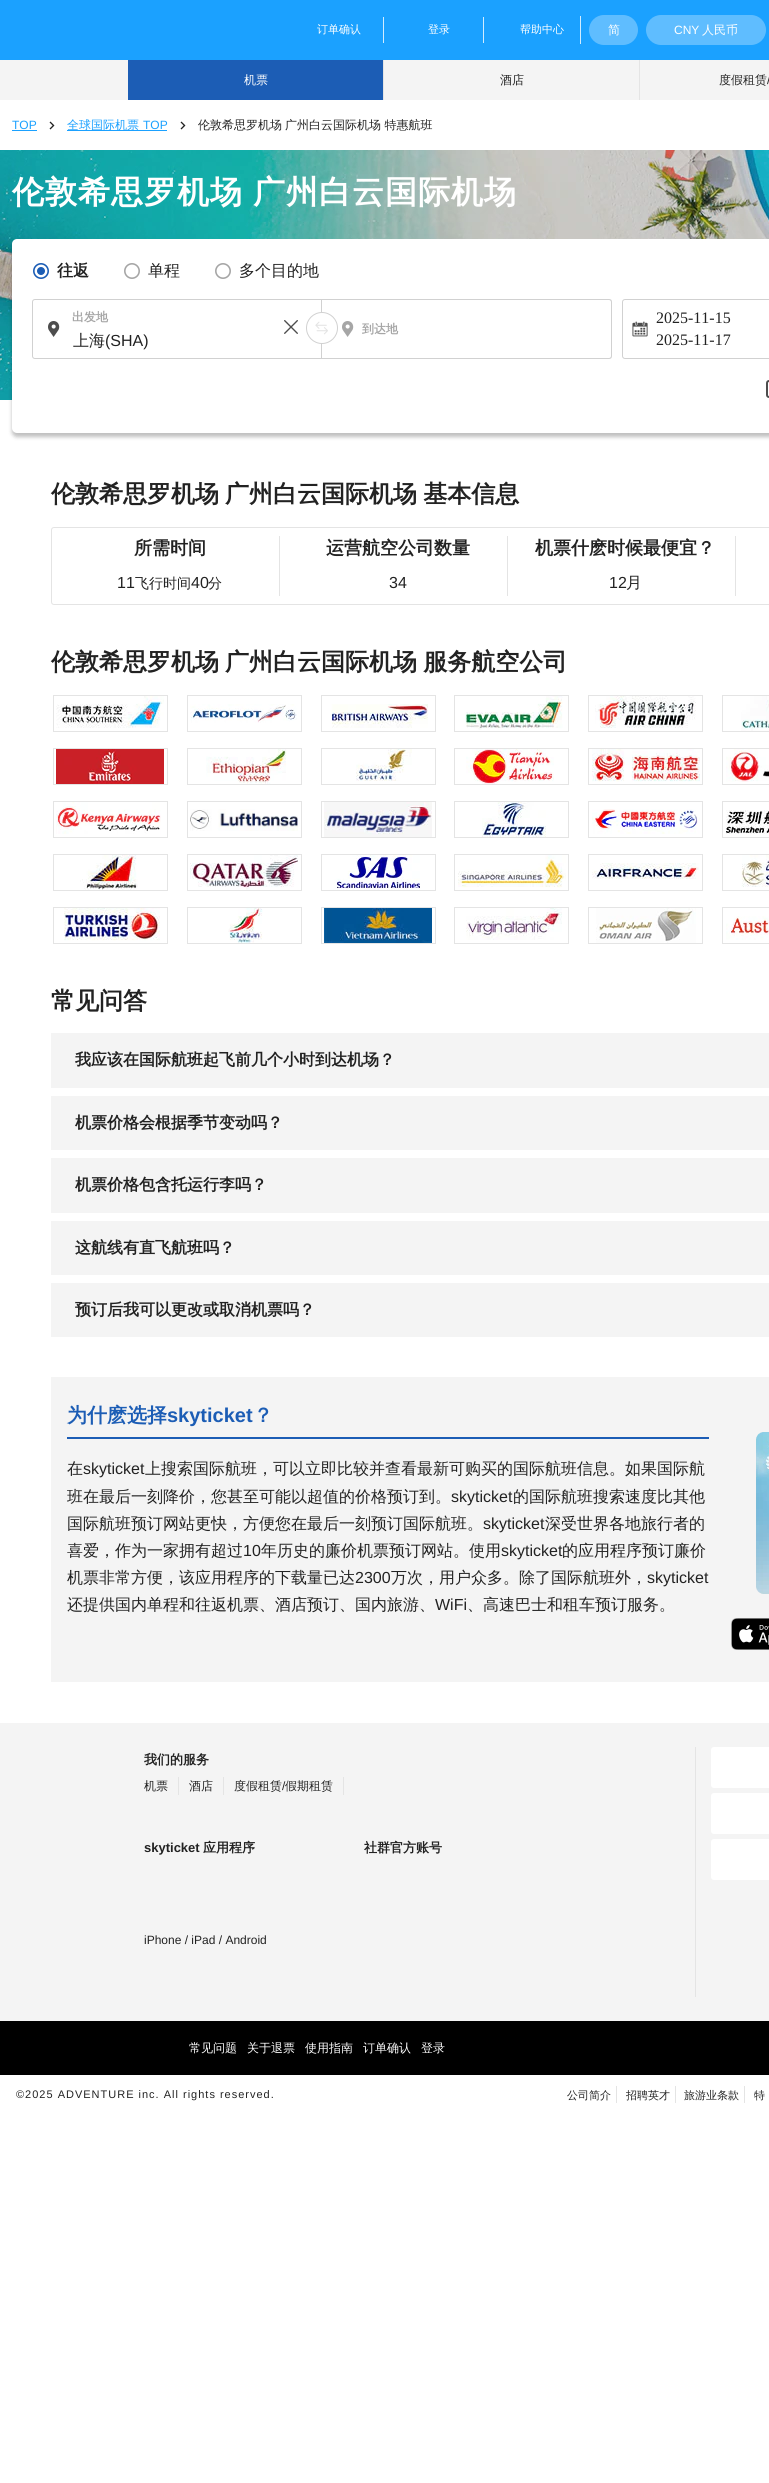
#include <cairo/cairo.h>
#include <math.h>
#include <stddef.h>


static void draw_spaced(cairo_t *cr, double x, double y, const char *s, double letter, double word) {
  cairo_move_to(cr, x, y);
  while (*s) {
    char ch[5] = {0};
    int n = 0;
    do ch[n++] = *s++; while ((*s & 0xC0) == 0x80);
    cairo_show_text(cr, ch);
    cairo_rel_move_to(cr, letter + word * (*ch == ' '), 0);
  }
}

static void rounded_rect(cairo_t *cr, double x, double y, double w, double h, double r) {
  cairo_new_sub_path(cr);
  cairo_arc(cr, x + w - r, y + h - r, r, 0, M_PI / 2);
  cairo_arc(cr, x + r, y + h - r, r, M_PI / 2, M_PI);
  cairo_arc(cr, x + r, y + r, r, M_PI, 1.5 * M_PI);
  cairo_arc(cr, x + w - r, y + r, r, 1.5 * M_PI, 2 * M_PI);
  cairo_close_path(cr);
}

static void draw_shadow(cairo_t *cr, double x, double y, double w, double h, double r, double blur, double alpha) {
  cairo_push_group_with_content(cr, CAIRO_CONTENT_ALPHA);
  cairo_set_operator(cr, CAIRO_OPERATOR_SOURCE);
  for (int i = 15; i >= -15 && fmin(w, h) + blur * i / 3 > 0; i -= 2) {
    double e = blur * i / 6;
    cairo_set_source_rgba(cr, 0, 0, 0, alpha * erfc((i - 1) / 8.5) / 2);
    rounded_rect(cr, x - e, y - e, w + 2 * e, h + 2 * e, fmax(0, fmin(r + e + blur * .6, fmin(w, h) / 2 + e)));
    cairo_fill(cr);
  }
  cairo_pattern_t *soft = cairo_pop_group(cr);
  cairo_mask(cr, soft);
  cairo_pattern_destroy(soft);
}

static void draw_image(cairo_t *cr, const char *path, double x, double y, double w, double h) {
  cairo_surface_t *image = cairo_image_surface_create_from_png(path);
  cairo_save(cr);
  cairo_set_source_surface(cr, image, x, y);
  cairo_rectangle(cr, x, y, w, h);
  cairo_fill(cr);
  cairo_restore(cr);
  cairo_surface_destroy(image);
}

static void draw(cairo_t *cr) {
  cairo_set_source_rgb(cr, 1, 1, 1);
  cairo_paint(cr);
  cairo_set_source_rgb(cr, 27 / 255.0, 161 / 255.0, 1);
  cairo_rectangle(cr, 0, 0, 769, 60);
  cairo_fill(cr);
  cairo_set_source_rgb(cr, 209 / 255.0, 236 / 255.0, 1);
  cairo_rectangle(cr, 383, 17, 1, 26);
  cairo_fill(cr);
  cairo_rectangle(cr, 483, 17, 1, 26);
  cairo_fill(cr);
  cairo_rectangle(cr, 580, 16, 1, 28);
  cairo_fill(cr);
  cairo_set_source_rgb(cr, 95 / 255.0, 189 / 255.0, 1);
  rounded_rect(cr, 589, 15, 49, 30, 15);
  cairo_fill(cr);
  rounded_rect(cr, 646, 15, 120, 30, 15);
  cairo_fill(cr);
  cairo_set_source_rgb(cr, 244 / 255.0, 244 / 255.0, 244 / 255.0);
  cairo_rectangle(cr, 0, 60, 769, 40);
  cairo_fill(cr);
  cairo_set_source_rgb(cr, 28 / 255.0, 93 / 255.0, 181 / 255.0);
  cairo_rectangle(cr, 128, 60, 255, 40);
  cairo_fill(cr);
  cairo_set_source_rgb(cr, 228 / 255.0, 228 / 255.0, 228 / 255.0);
  cairo_rectangle(cr, 383, 60, 1, 40);
  cairo_fill(cr);
  cairo_rectangle(cr, 639, 60, 1, 40);
  cairo_fill(cr);
  cairo_set_source_rgb(cr, 27 / 255.0, 161 / 255.0, 1);
  cairo_rectangle(cr, 12, 130, 25, 1);
  cairo_fill(cr);
  draw_image(cr, "images/1.png", 49, 121, 6, 9);
  cairo_rectangle(cr, 67, 130, 100, 1);
  cairo_fill(cr);
  draw_image(cr, "images/1.png", 180, 121, 6, 9);
  draw_image(cr, "images/2.png", 0, 150, 769, 250);
  cairo_set_source_rgb(cr, 0, 0, 0);
  draw_shadow(cr, 12, 243, 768, 194, 5, 2, 0.25);
  cairo_set_source_rgb(cr, 1, 1, 1);
  rounded_rect(cr, 12, 239, 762, 194, 5);
  cairo_fill(cr);
  draw_image(cr, "images/3.png", 33, 263, 16, 16);
  draw_image(cr, "images/4.png", 124, 263, 16, 16);
  draw_image(cr, "images/4.png", 215, 263, 16, 16);
  cairo_new_path(cr);
  cairo_move_to(cr, 35, 299.5);
  cairo_line_to(cr, 321.5, 299.5);
  cairo_line_to(cr, 321.5, 358.5);
  cairo_line_to(cr, 35, 358.5);
  cairo_curve_to(cr, 33.5, 358.5, 32.5, 357.5, 32.5, 356);
  cairo_line_to(cr, 32.5, 302);
  cairo_curve_to(cr, 32.5, 300.5, 33.5, 299.5, 35, 299.5);
  cairo_close_path(cr);
  cairo_set_source_rgb(cr, 209 / 255.0, 209 / 255.0, 209 / 255.0);
  cairo_set_line_width(cr, 1);
  cairo_stroke(cr);
  draw_image(cr, "images/5.png", 48, 321, 12, 16);
  draw_image(cr, "images/6.png", 284, 320, 14, 14);
  cairo_set_fill_rule(cr, CAIRO_FILL_RULE_EVEN_ODD);
  cairo_new_path(cr);
  cairo_move_to(cr, 322, 299);
  cairo_line_to(cr, 609, 299);
  cairo_curve_to(cr, 611, 299, 612, 300, 612, 302);
  cairo_line_to(cr, 612, 356);
  cairo_curve_to(cr, 612, 358, 611, 359, 609, 359);
  cairo_line_to(cr, 322, 359);
  cairo_close_path(cr);
  cairo_move_to(cr, 322, 300);
  cairo_line_to(cr, 609, 300);
  cairo_curve_to(cr, 610, 300, 611, 301, 611, 302);
  cairo_line_to(cr, 611, 356);
  cairo_curve_to(cr, 611, 357, 610, 358, 609, 358);
  cairo_line_to(cr, 322, 358);
  cairo_close_path(cr);
  cairo_fill(cr);
  cairo_set_source_rgb(cr, 1, 1, 1);
  cairo_arc(cr, 322, 328, 15.5, 0, 2 * M_PI);
  cairo_fill_preserve(cr);
  cairo_set_source_rgb(cr, 209 / 255.0, 209 / 255.0, 209 / 255.0);
  cairo_stroke(cr);
  draw_image(cr, "images/7.png", 315, 321, 13, 14);
  draw_image(cr, "images/8.png", 342, 321, 12, 16);
  rounded_rect(cr, 622.5, 299.5, 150, 59, 2.5);
  cairo_stroke(cr);
  draw_image(cr, "images/9.png", 632, 321, 16, 16);
  rounded_rect(cr, 767, 381, 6, 16, 2);
  cairo_set_source_rgb(cr, 77 / 255.0, 77 / 255.0, 77 / 255.0);
  cairo_set_line_width(cr, 2);
  cairo_stroke(cr);
  rounded_rect(cr, 51.5, 527.5, 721, 77, 2.5);
  cairo_set_source_rgb(cr, 228 / 255.0, 228 / 255.0, 228 / 255.0);
  cairo_set_line_width(cr, 1);
  cairo_stroke(cr);
  cairo_rectangle(cr, 279, 536, 1, 60);
  cairo_fill(cr);
  cairo_rectangle(cr, 507, 536, 1, 60);
  cairo_fill(cr);
  cairo_rectangle(cr, 735, 536, 1, 60);
  cairo_fill(cr);
  cairo_rectangle(cr, 53.5, 695.5, 114, 36);
  cairo_stroke(cr);
  draw_image(cr, "images/10.png", 56, 696, 108, 32);
  cairo_rectangle(cr, 187.5, 695.5, 114, 36);
  cairo_stroke(cr);
  draw_image(cr, "images/11.png", 190, 704, 107, 19);
  cairo_rectangle(cr, 321.5, 695.5, 114, 36);
  cairo_stroke(cr);
  draw_image(cr, "images/12.png", 331, 704, 97, 24);
  cairo_rectangle(cr, 454.5, 695.5, 114, 36);
  cairo_stroke(cr);
  draw_image(cr, "images/13.png", 465, 696, 98, 34);
  cairo_rectangle(cr, 588.5, 695.5, 114, 36);
  cairo_stroke(cr);
  draw_image(cr, "images/14.png", 595, 696, 101, 32);
  cairo_rectangle(cr, 722.5, 695.5, 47, 36);
  cairo_stroke(cr);
  draw_image(cr, "images/15.png", 741, 696, 28, 35);
  cairo_rectangle(cr, 53.5, 748.5, 114, 36);
  cairo_stroke(cr);
  draw_image(cr, "images/16.png", 56, 749, 108, 35);
  cairo_rectangle(cr, 187.5, 748.5, 114, 36);
  cairo_stroke(cr);
  draw_image(cr, "images/17.png", 206, 749, 81, 35);
  cairo_rectangle(cr, 321.5, 748.5, 114, 36);
  cairo_stroke(cr);
  draw_image(cr, "images/18.png", 356, 749, 56, 32);
  cairo_rectangle(cr, 454.5, 748.5, 114, 36);
  cairo_stroke(cr);
  draw_image(cr, "images/19.png", 466, 749, 88, 35);
  cairo_rectangle(cr, 588.5, 748.5, 114, 36);
  cairo_stroke(cr);
  draw_image(cr, "images/20.png", 592, 749, 108, 33);
  cairo_rectangle(cr, 722.5, 748.5, 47, 36);
  cairo_stroke(cr);
  draw_image(cr, "images/21.png", 726, 749, 43, 33);
  cairo_rectangle(cr, 53.5, 801.5, 114, 36);
  cairo_stroke(cr);
  draw_image(cr, "images/22.png", 56, 802, 105, 32);
  cairo_rectangle(cr, 187.5, 801.5, 114, 36);
  cairo_stroke(cr);
  draw_image(cr, "images/23.png", 190, 809, 108, 22);
  cairo_rectangle(cr, 321.5, 801.5, 114, 36);
  cairo_stroke(cr);
  draw_image(cr, "images/24.png", 324, 802, 108, 35);
  cairo_rectangle(cr, 454.5, 801.5, 114, 36);
  cairo_stroke(cr);
  draw_image(cr, "images/25.png", 482, 802, 64, 35);
  cairo_rectangle(cr, 588.5, 801.5, 114, 36);
  cairo_stroke(cr);
  draw_image(cr, "images/26.png", 592, 809, 108, 25);
  cairo_rectangle(cr, 722.5, 801.5, 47, 36);
  cairo_stroke(cr);
  draw_image(cr, "images/27.png", 726, 810, 43, 24);
  cairo_rectangle(cr, 53.5, 854.5, 114, 36);
  cairo_stroke(cr);
  draw_image(cr, "images/28.png", 80, 855, 58, 35);
  cairo_rectangle(cr, 187.5, 854.5, 114, 36);
  cairo_stroke(cr);
  draw_image(cr, "images/29.png", 190, 855, 108, 35);
  cairo_rectangle(cr, 321.5, 854.5, 114, 36);
  cairo_stroke(cr);
  draw_image(cr, "images/30.png", 334, 855, 86, 35);
  cairo_rectangle(cr, 454.5, 854.5, 114, 36);
  cairo_stroke(cr);
  draw_image(cr, "images/31.png", 458, 855, 108, 33);
  cairo_rectangle(cr, 588.5, 854.5, 114, 36);
  cairo_stroke(cr);
  draw_image(cr, "images/32.png", 592, 863, 107, 16);
  cairo_rectangle(cr, 722.5, 854.5, 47, 36);
  cairo_stroke(cr);
  draw_image(cr, "images/33.png", 741, 855, 28, 32);
  cairo_rectangle(cr, 53.5, 907.5, 114, 36);
  cairo_stroke(cr);
  draw_image(cr, "images/34.png", 64, 908, 96, 33);
  cairo_rectangle(cr, 187.5, 907.5, 114, 36);
  cairo_stroke(cr);
  draw_image(cr, "images/35.png", 228, 908, 35, 35);
  cairo_rectangle(cr, 321.5, 907.5, 114, 36);
  cairo_stroke(cr);
  draw_image(cr, "images/36.png", 324, 908, 108, 35);
  cairo_rectangle(cr, 454.5, 907.5, 114, 36);
  cairo_stroke(cr);
  draw_image(cr, "images/37.png", 466, 908, 96, 32);
  cairo_rectangle(cr, 588.5, 907.5, 114, 36);
  cairo_stroke(cr);
  draw_image(cr, "images/38.png", 596, 908, 100, 35);
  cairo_rectangle(cr, 722.5, 907.5, 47, 36);
  cairo_stroke(cr);
  draw_image(cr, "images/39.png", 726, 916, 43, 24);
  cairo_set_source_rgb(cr, 244 / 255.0, 244 / 255.0, 244 / 255.0);
  cairo_rectangle(cr, 51, 1033, 718, 55);
  cairo_fill(cr);
  cairo_rectangle(cr, 51, 1096, 718, 54);
  cairo_fill(cr);
  cairo_rectangle(cr, 51, 1158, 718, 55);
  cairo_fill(cr);
  cairo_rectangle(cr, 51, 1221, 718, 54);
  cairo_fill(cr);
  cairo_rectangle(cr, 51, 1283, 718, 54);
  cairo_fill(cr);
  cairo_rectangle(cr, 51, 1377, 718, 305);
  cairo_fill(cr);
  cairo_set_source_rgb(cr, 28 / 255.0, 93 / 255.0, 181 / 255.0);
  cairo_rectangle(cr, 67, 1437, 642, 2);
  cairo_fill(cr);
  draw_image(cr, "images/40.png", 756, 1432, 13, 162);
  draw_image(cr, "images/41.png", 731, 1618, 38, 32);
  cairo_set_source_rgb(cr, 244 / 255.0, 244 / 255.0, 244 / 255.0);
  cairo_rectangle(cr, 0, 1723, 769, 298);
  cairo_fill(cr);
  cairo_set_source_rgb(cr, 228 / 255.0, 228 / 255.0, 228 / 255.0);
  cairo_rectangle(cr, 695, 1747, 1, 250);
  cairo_fill(cr);
  cairo_rectangle(cr, 178, 1777, 1, 18);
  cairo_fill(cr);
  cairo_rectangle(cr, 223, 1777, 1, 18);
  cairo_fill(cr);
  cairo_rectangle(cr, 343, 1777, 1, 18);
  cairo_fill(cr);
  cairo_set_source_rgb(cr, 1, 1, 1);
  rounded_rect(cr, 711, 1747, 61, 41, 3);
  cairo_fill(cr);
  rounded_rect(cr, 711, 1793, 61, 41, 3);
  cairo_fill(cr);
  rounded_rect(cr, 711, 1839, 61, 41, 3);
  cairo_fill(cr);
  cairo_set_source_rgb(cr, 0, 0, 0);
  cairo_rectangle(cr, 0, 2021, 769, 54);
  cairo_fill(cr);
  cairo_set_source_rgb(cr, 228 / 255.0, 228 / 255.0, 228 / 255.0);
  cairo_rectangle(cr, 616, 2086, 1, 17);
  cairo_fill(cr);
  cairo_rectangle(cr, 675, 2086, 1, 17);
  cairo_fill(cr);
  cairo_rectangle(cr, 744, 2086, 1, 17);
  cairo_fill(cr);
  cairo_select_font_face(cr, "WenQuanYi Zen Hei Medium", CAIRO_FONT_SLANT_NORMAL, CAIRO_FONT_WEIGHT_NORMAL);
  cairo_set_font_size(cr, 11);
  cairo_set_source_rgb(cr, 1, 1, 1);
  cairo_move_to(cr, 317, 33);
  cairo_show_text(cr, "订单确认");
  cairo_move_to(cr, 428, 33);
  cairo_show_text(cr, "登录");
  cairo_move_to(cr, 520, 33);
  cairo_show_text(cr, "帮助中心");
  cairo_set_font_size(cr, 12);
  cairo_move_to(cr, 608, 34);
  cairo_show_text(cr, "简");
  cairo_select_font_face(cr, "Liberation Sans", CAIRO_FONT_SLANT_NORMAL, CAIRO_FONT_WEIGHT_NORMAL);
  cairo_move_to(cr, 674, 34);
  cairo_show_text(cr, "CNY");
  cairo_select_font_face(cr, "WenQuanYi Zen Hei Medium", CAIRO_FONT_SLANT_NORMAL, CAIRO_FONT_WEIGHT_NORMAL);
  cairo_move_to(cr, 702, 34);
  cairo_show_text(cr, "人民币");
  cairo_move_to(cr, 244, 84);
  cairo_show_text(cr, "机票");
  cairo_set_source_rgb(cr, 34 / 255.0, 34 / 255.0, 34 / 255.0);
  cairo_move_to(cr, 500, 84);
  cairo_show_text(cr, "酒店");
  cairo_move_to(cr, 719, 84);
  cairo_show_text(cr, "度假租赁");
  cairo_select_font_face(cr, "Liberation Sans", CAIRO_FONT_SLANT_NORMAL, CAIRO_FONT_WEIGHT_NORMAL);
  cairo_move_to(cr, 767, 84);
  cairo_show_text(cr, "/");
  cairo_set_source_rgb(cr, 27 / 255.0, 161 / 255.0, 1);
  cairo_move_to(cr, 12, 129);
  cairo_show_text(cr, "TOP");
  cairo_select_font_face(cr, "WenQuanYi Zen Hei Medium", CAIRO_FONT_SLANT_NORMAL, CAIRO_FONT_WEIGHT_NORMAL);
  cairo_move_to(cr, 67, 129);
  cairo_show_text(cr, "全球国际机票");
  cairo_select_font_face(cr, "Liberation Sans", CAIRO_FONT_SLANT_NORMAL, CAIRO_FONT_WEIGHT_NORMAL);
  cairo_move_to(cr, 143, 129);
  cairo_show_text(cr, "TOP");
  cairo_select_font_face(cr, "WenQuanYi Zen Hei Medium", CAIRO_FONT_SLANT_NORMAL, CAIRO_FONT_WEIGHT_NORMAL);
  cairo_set_source_rgb(cr, 34 / 255.0, 34 / 255.0, 34 / 255.0);
  cairo_move_to(cr, 198, 129);
  cairo_show_text(cr, "伦敦希思罗机场");
  cairo_move_to(cr, 285, 129);
  cairo_show_text(cr, "广州白云国际机场 特惠航班");
  cairo_select_font_face(cr, "WenQuanYi Zen Hei", CAIRO_FONT_SLANT_NORMAL, CAIRO_FONT_WEIGHT_BOLD);
  cairo_set_font_size(cr, 32);
  cairo_set_source_rgb(cr, 1, 1, 1);
  draw_spaced(cr, 12, 203, "伦敦希思罗机场", 1, 0);
  draw_spaced(cr, 253, 203, "广州白云国际机场", 1, 0);
  cairo_set_font_size(cr, 16);
  cairo_set_source_rgb(cr, 34 / 255.0, 34 / 255.0, 34 / 255.0);
  cairo_move_to(cr, 57, 276);
  cairo_show_text(cr, "往返");
  cairo_select_font_face(cr, "WenQuanYi Zen Hei Medium", CAIRO_FONT_SLANT_NORMAL, CAIRO_FONT_WEIGHT_NORMAL);
  cairo_move_to(cr, 148, 276);
  cairo_show_text(cr, "单程");
  cairo_move_to(cr, 239, 276);
  cairo_show_text(cr, "多个目的地");
  cairo_select_font_face(cr, "WenQuanYi Zen Hei", CAIRO_FONT_SLANT_NORMAL, CAIRO_FONT_WEIGHT_BOLD);
  cairo_set_font_size(cr, 12);
  cairo_set_source_rgb(cr, 166 / 255.0, 166 / 255.0, 166 / 255.0);
  cairo_move_to(cr, 72, 321);
  cairo_show_text(cr, "出发地");
  cairo_select_font_face(cr, "WenQuanYi Zen Hei Medium", CAIRO_FONT_SLANT_NORMAL, CAIRO_FONT_WEIGHT_NORMAL);
  cairo_set_font_size(cr, 16);
  cairo_set_source_rgb(cr, 34 / 255.0, 34 / 255.0, 34 / 255.0);
  cairo_move_to(cr, 73, 346);
  cairo_show_text(cr, "上海");
  cairo_select_font_face(cr, "Liberation Sans", CAIRO_FONT_SLANT_NORMAL, CAIRO_FONT_WEIGHT_NORMAL);
  cairo_move_to(cr, 105, 346);
  cairo_show_text(cr, "(SHA)");
  cairo_select_font_face(cr, "WenQuanYi Zen Hei", CAIRO_FONT_SLANT_NORMAL, CAIRO_FONT_WEIGHT_BOLD);
  cairo_set_font_size(cr, 12);
  cairo_set_source_rgb(cr, 166 / 255.0, 166 / 255.0, 166 / 255.0);
  cairo_move_to(cr, 362, 333);
  cairo_show_text(cr, "到达地");
  cairo_select_font_face(cr, "Liberation Serif", CAIRO_FONT_SLANT_NORMAL, CAIRO_FONT_WEIGHT_NORMAL);
  cairo_set_font_size(cr, 16);
  cairo_set_source_rgb(cr, 34 / 255.0, 34 / 255.0, 34 / 255.0);
  cairo_move_to(cr, 656, 323);
  cairo_show_text(cr, "2025-11-15");
  cairo_move_to(cr, 656, 345);
  cairo_show_text(cr, "2025-11-17");
  cairo_select_font_face(cr, "WenQuanYi Zen Hei", CAIRO_FONT_SLANT_NORMAL, CAIRO_FONT_WEIGHT_BOLD);
  cairo_set_font_size(cr, 24);
  cairo_move_to(cr, 51, 502);
  cairo_show_text(cr, "伦敦希思罗机场");
  draw_spaced(cr, 225, 502, "广州白云国际机场 基本信息", 0, -1);
  cairo_set_font_size(cr, 18);
  cairo_move_to(cr, 134, 554);
  cairo_show_text(cr, "所需时间");
  cairo_select_font_face(cr, "Liberation Sans", CAIRO_FONT_SLANT_NORMAL, CAIRO_FONT_WEIGHT_NORMAL);
  cairo_set_font_size(cr, 16);
  cairo_move_to(cr, 117, 588);
  cairo_show_text(cr, "11");
  cairo_select_font_face(cr, "WenQuanYi Zen Hei Medium", CAIRO_FONT_SLANT_NORMAL, CAIRO_FONT_WEIGHT_NORMAL);
  cairo_set_font_size(cr, 14);
  cairo_move_to(cr, 135, 588);
  cairo_show_text(cr, "飞行时间");
  cairo_select_font_face(cr, "Liberation Sans", CAIRO_FONT_SLANT_NORMAL, CAIRO_FONT_WEIGHT_NORMAL);
  cairo_set_font_size(cr, 16);
  cairo_move_to(cr, 191, 588);
  cairo_show_text(cr, "40");
  cairo_select_font_face(cr, "WenQuanYi Zen Hei Medium", CAIRO_FONT_SLANT_NORMAL, CAIRO_FONT_WEIGHT_NORMAL);
  cairo_set_font_size(cr, 14);
  cairo_move_to(cr, 208, 588);
  cairo_show_text(cr, "分");
  cairo_select_font_face(cr, "WenQuanYi Zen Hei", CAIRO_FONT_SLANT_NORMAL, CAIRO_FONT_WEIGHT_BOLD);
  cairo_set_font_size(cr, 18);
  cairo_move_to(cr, 326, 554);
  cairo_show_text(cr, "运营航空公司数量");
  cairo_select_font_face(cr, "Liberation Sans", CAIRO_FONT_SLANT_NORMAL, CAIRO_FONT_WEIGHT_NORMAL);
  cairo_set_font_size(cr, 16);
  cairo_move_to(cr, 389, 588);
  cairo_show_text(cr, "34");
  cairo_select_font_face(cr, "WenQuanYi Zen Hei", CAIRO_FONT_SLANT_NORMAL, CAIRO_FONT_WEIGHT_BOLD);
  cairo_set_font_size(cr, 18);
  cairo_move_to(cr, 535, 554);
  cairo_show_text(cr, "机票什麽时候最便宜？");
  cairo_select_font_face(cr, "Liberation Sans", CAIRO_FONT_SLANT_NORMAL, CAIRO_FONT_WEIGHT_NORMAL);
  cairo_set_font_size(cr, 16);
  cairo_move_to(cr, 609, 588);
  cairo_show_text(cr, "12");
  cairo_select_font_face(cr, "WenQuanYi Zen Hei Medium", CAIRO_FONT_SLANT_NORMAL, CAIRO_FONT_WEIGHT_NORMAL);
  cairo_move_to(cr, 626, 588);
  cairo_show_text(cr, "月");
  cairo_select_font_face(cr, "WenQuanYi Zen Hei", CAIRO_FONT_SLANT_NORMAL, CAIRO_FONT_WEIGHT_BOLD);
  cairo_set_font_size(cr, 24);
  cairo_move_to(cr, 51, 670);
  cairo_show_text(cr, "伦敦希思罗机场");
  draw_spaced(cr, 225, 670, "广州白云国际机场 服务航空公司", 0, -1);
  cairo_move_to(cr, 51, 1009);
  cairo_show_text(cr, "常见问答");
  cairo_set_font_size(cr, 16);
  cairo_move_to(cr, 75, 1065);
  cairo_show_text(cr, "我应该在国际航班起飞前几个小时到达机场？");
  cairo_move_to(cr, 75, 1128);
  cairo_show_text(cr, "机票价格会根据季节变动吗？");
  cairo_move_to(cr, 75, 1190);
  cairo_show_text(cr, "机票价格包含托运行李吗？");
  cairo_move_to(cr, 75, 1253);
  cairo_show_text(cr, "这航线有直飞航班吗？");
  cairo_move_to(cr, 75, 1315);
  cairo_show_text(cr, "预订后我可以更改或取消机票吗？");
  cairo_set_font_size(cr, 20);
  cairo_set_source_rgb(cr, 28 / 255.0, 93 / 255.0, 181 / 255.0);
  cairo_move_to(cr, 67, 1422);
  cairo_show_text(cr, "为什麽选择");
  cairo_select_font_face(cr, "Liberation Sans", CAIRO_FONT_SLANT_NORMAL, CAIRO_FONT_WEIGHT_BOLD);
  cairo_move_to(cr, 167, 1422);
  cairo_show_text(cr, "skyticket");
  cairo_select_font_face(cr, "WenQuanYi Zen Hei", CAIRO_FONT_SLANT_NORMAL, CAIRO_FONT_WEIGHT_BOLD);
  cairo_move_to(cr, 253, 1422);
  cairo_show_text(cr, "？");
  cairo_select_font_face(cr, "WenQuanYi Zen Hei Medium", CAIRO_FONT_SLANT_NORMAL, CAIRO_FONT_WEIGHT_NORMAL);
  cairo_set_font_size(cr, 16);
  cairo_set_source_rgb(cr, 34 / 255.0, 34 / 255.0, 34 / 255.0);
  cairo_move_to(cr, 67, 1474);
  cairo_show_text(cr, "在");
  cairo_select_font_face(cr, "Liberation Sans", CAIRO_FONT_SLANT_NORMAL, CAIRO_FONT_WEIGHT_NORMAL);
  cairo_move_to(cr, 83, 1474);
  cairo_show_text(cr, "skyticket");
  cairo_select_font_face(cr, "WenQuanYi Zen Hei Medium", CAIRO_FONT_SLANT_NORMAL, CAIRO_FONT_WEIGHT_NORMAL);
  cairo_move_to(cr, 145, 1474);
  cairo_show_text(cr, "上搜索国际航班，可以立即比较并查看最新可购买的国际航班信息。如果国际航");
  cairo_move_to(cr, 67, 1502);
  cairo_show_text(cr, "班在最后一刻降价，您甚至可能以超值的价格预订到。");
  cairo_select_font_face(cr, "Liberation Sans", CAIRO_FONT_SLANT_NORMAL, CAIRO_FONT_WEIGHT_NORMAL);
  cairo_move_to(cr, 451, 1502);
  cairo_show_text(cr, "skyticket");
  cairo_select_font_face(cr, "WenQuanYi Zen Hei Medium", CAIRO_FONT_SLANT_NORMAL, CAIRO_FONT_WEIGHT_NORMAL);
  cairo_move_to(cr, 513, 1502);
  cairo_show_text(cr, "的国际航班搜索速度比其他");
  cairo_move_to(cr, 67, 1529);
  cairo_show_text(cr, "国际航班预订网站更快，方便您在最后一刻预订国际航班。");
  cairo_select_font_face(cr, "Liberation Sans", CAIRO_FONT_SLANT_NORMAL, CAIRO_FONT_WEIGHT_NORMAL);
  cairo_move_to(cr, 483, 1529);
  cairo_show_text(cr, "skyticket");
  cairo_select_font_face(cr, "WenQuanYi Zen Hei Medium", CAIRO_FONT_SLANT_NORMAL, CAIRO_FONT_WEIGHT_NORMAL);
  cairo_move_to(cr, 545, 1529);
  cairo_show_text(cr, "深受世界各地旅行者的");
  cairo_move_to(cr, 67, 1556);
  cairo_show_text(cr, "喜爱，作为一家拥有超过");
  cairo_select_font_face(cr, "Liberation Sans", CAIRO_FONT_SLANT_NORMAL, CAIRO_FONT_WEIGHT_NORMAL);
  cairo_move_to(cr, 243, 1556);
  cairo_show_text(cr, "10");
  cairo_select_font_face(cr, "WenQuanYi Zen Hei Medium", CAIRO_FONT_SLANT_NORMAL, CAIRO_FONT_WEIGHT_NORMAL);
  cairo_move_to(cr, 261, 1556);
  cairo_show_text(cr, "年历史的廉价机票预订网站。使用");
  cairo_select_font_face(cr, "Liberation Sans", CAIRO_FONT_SLANT_NORMAL, CAIRO_FONT_WEIGHT_NORMAL);
  cairo_move_to(cr, 501, 1556);
  cairo_show_text(cr, "skyticket");
  cairo_select_font_face(cr, "WenQuanYi Zen Hei Medium", CAIRO_FONT_SLANT_NORMAL, CAIRO_FONT_WEIGHT_NORMAL);
  cairo_move_to(cr, 562, 1556);
  cairo_show_text(cr, "的应用程序预订廉价");
  cairo_move_to(cr, 67, 1583);
  cairo_show_text(cr, "机票非常方便，该应用程序的下载量已达");
  cairo_select_font_face(cr, "Liberation Sans", CAIRO_FONT_SLANT_NORMAL, CAIRO_FONT_WEIGHT_NORMAL);
  cairo_move_to(cr, 355, 1583);
  cairo_show_text(cr, "2300");
  cairo_select_font_face(cr, "WenQuanYi Zen Hei Medium", CAIRO_FONT_SLANT_NORMAL, CAIRO_FONT_WEIGHT_NORMAL);
  cairo_move_to(cr, 391, 1583);
  cairo_show_text(cr, "万次，用户众多。除了国际航班外，");
  cairo_select_font_face(cr, "Liberation Sans", CAIRO_FONT_SLANT_NORMAL, CAIRO_FONT_WEIGHT_NORMAL);
  cairo_move_to(cr, 647, 1583);
  cairo_show_text(cr, "skyticket");
  cairo_select_font_face(cr, "WenQuanYi Zen Hei Medium", CAIRO_FONT_SLANT_NORMAL, CAIRO_FONT_WEIGHT_NORMAL);
  cairo_move_to(cr, 67, 1610);
  cairo_show_text(cr, "还提供国内单程和往返机票、酒店预订、国内旅游、");
  cairo_select_font_face(cr, "Liberation Sans", CAIRO_FONT_SLANT_NORMAL, CAIRO_FONT_WEIGHT_NORMAL);
  cairo_move_to(cr, 435, 1610);
  cairo_show_text(cr, "WiFi");
  cairo_select_font_face(cr, "WenQuanYi Zen Hei Medium", CAIRO_FONT_SLANT_NORMAL, CAIRO_FONT_WEIGHT_NORMAL);
  cairo_move_to(cr, 467, 1610);
  cairo_show_text(cr, "、高速巴士和租车预订服务。");
  cairo_select_font_face(cr, "WenQuanYi Zen Hei", CAIRO_FONT_SLANT_NORMAL, CAIRO_FONT_WEIGHT_BOLD);
  cairo_set_font_size(cr, 13);
  cairo_move_to(cr, 144, 1764);
  cairo_show_text(cr, "我们的服务");
  cairo_select_font_face(cr, "WenQuanYi Zen Hei Medium", CAIRO_FONT_SLANT_NORMAL, CAIRO_FONT_WEIGHT_NORMAL);
  cairo_set_font_size(cr, 12);
  cairo_move_to(cr, 144, 1790);
  cairo_show_text(cr, "机票");
  cairo_move_to(cr, 189, 1790);
  cairo_show_text(cr, "酒店");
  cairo_move_to(cr, 234, 1790);
  cairo_show_text(cr, "度假租赁");
  cairo_select_font_face(cr, "Liberation Sans", CAIRO_FONT_SLANT_NORMAL, CAIRO_FONT_WEIGHT_NORMAL);
  cairo_move_to(cr, 282, 1790);
  cairo_show_text(cr, "/");
  cairo_select_font_face(cr, "WenQuanYi Zen Hei Medium", CAIRO_FONT_SLANT_NORMAL, CAIRO_FONT_WEIGHT_NORMAL);
  cairo_move_to(cr, 285, 1790);
  cairo_show_text(cr, "假期租赁");
  cairo_select_font_face(cr, "Liberation Sans", CAIRO_FONT_SLANT_NORMAL, CAIRO_FONT_WEIGHT_BOLD);
  cairo_set_font_size(cr, 13);
  cairo_move_to(cr, 144, 1852);
  cairo_show_text(cr, "skyticket");
  cairo_select_font_face(cr, "WenQuanYi Zen Hei", CAIRO_FONT_SLANT_NORMAL, CAIRO_FONT_WEIGHT_BOLD);
  cairo_move_to(cr, 203, 1852);
  cairo_show_text(cr, "应用程序");
  cairo_select_font_face(cr, "Liberation Sans", CAIRO_FONT_SLANT_NORMAL, CAIRO_FONT_WEIGHT_NORMAL);
  cairo_set_font_size(cr, 12);
  cairo_move_to(cr, 144, 1944);
  cairo_show_text(cr, "iPhone / iPad / Android");
  cairo_select_font_face(cr, "WenQuanYi Zen Hei", CAIRO_FONT_SLANT_NORMAL, CAIRO_FONT_WEIGHT_BOLD);
  cairo_set_font_size(cr, 13);
  cairo_move_to(cr, 364, 1852);
  cairo_show_text(cr, "社群官方账号");
  cairo_select_font_face(cr, "WenQuanYi Zen Hei Medium", CAIRO_FONT_SLANT_NORMAL, CAIRO_FONT_WEIGHT_NORMAL);
  cairo_set_font_size(cr, 12);
  cairo_set_source_rgb(cr, 1, 1, 1);
  cairo_move_to(cr, 189, 2052);
  cairo_show_text(cr, "常见问题");
  cairo_move_to(cr, 247, 2052);
  cairo_show_text(cr, "关于退票");
  cairo_move_to(cr, 305, 2052);
  cairo_show_text(cr, "使用指南");
  cairo_move_to(cr, 363, 2052);
  cairo_show_text(cr, "订单确认");
  cairo_move_to(cr, 421, 2052);
  cairo_show_text(cr, "登录");
  cairo_select_font_face(cr, "Liberation Sans", CAIRO_FONT_SLANT_NORMAL, CAIRO_FONT_WEIGHT_NORMAL);
  cairo_set_font_size(cr, 11);
  cairo_set_source_rgb(cr, 34 / 255.0, 34 / 255.0, 34 / 255.0);
  draw_spaced(cr, 16, 2098, "©2025 ADVENTURE inc. All rights reserved.", 1, 0);
  cairo_select_font_face(cr, "WenQuanYi Zen Hei Medium", CAIRO_FONT_SLANT_NORMAL, CAIRO_FONT_WEIGHT_NORMAL);
  cairo_move_to(cr, 567, 2099);
  cairo_show_text(cr, "公司简介");
  cairo_move_to(cr, 626, 2099);
  cairo_show_text(cr, "招聘英才");
  cairo_move_to(cr, 684, 2099);
  cairo_show_text(cr, "旅游业条款");
  cairo_move_to(cr, 754, 2099);
  cairo_show_text(cr, "特");
}

int main(void) {
  cairo_surface_t *surface = cairo_image_surface_create(CAIRO_FORMAT_RGB24, 769, 2483);
  cairo_t *cr = cairo_create(surface);
  cairo_font_options_t *options = cairo_font_options_create();
  cairo_font_options_set_hint_metrics(options, CAIRO_HINT_METRICS_OFF);
  cairo_font_options_set_hint_style(options, CAIRO_HINT_STYLE_NONE);
  cairo_set_font_options(cr, options);
  cairo_set_miter_limit(cr, 4);
  draw(cr);
  cairo_surface_write_to_png(surface, "out.png");
  cairo_font_options_destroy(options);
  cairo_destroy(cr);
  cairo_surface_destroy(surface);
  return 0;
}
